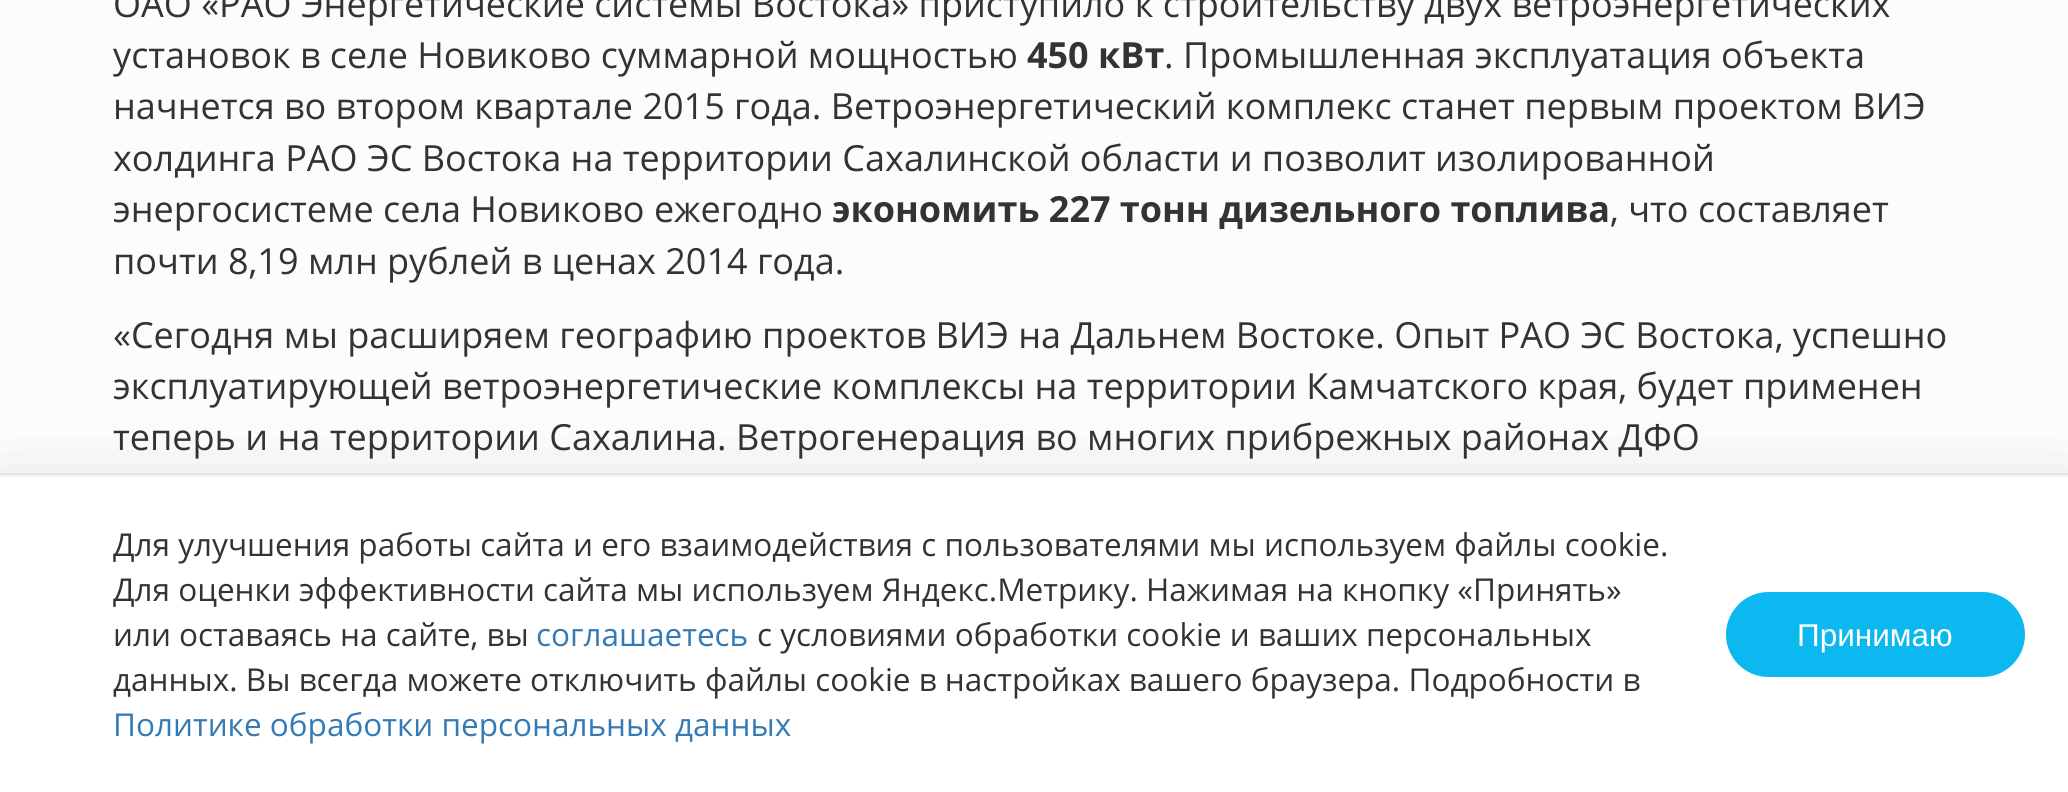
#include <cairo/cairo.h>
#include <math.h>
#include <stddef.h>


static void rounded_rect(cairo_t *cr, double x, double y, double w, double h, double r) {
  cairo_new_sub_path(cr);
  cairo_arc(cr, x + w - r, y + h - r, r, 0, M_PI / 2);
  cairo_arc(cr, x + r, y + h - r, r, M_PI / 2, M_PI);
  cairo_arc(cr, x + r, y + r, r, M_PI, 1.5 * M_PI);
  cairo_arc(cr, x + w - r, y + r, r, 1.5 * M_PI, 2 * M_PI);
  cairo_close_path(cr);
}

static void draw_shadow(cairo_t *cr, double x, double y, double w, double h, double r, double blur, double alpha) {
  cairo_push_group_with_content(cr, CAIRO_CONTENT_ALPHA);
  cairo_set_operator(cr, CAIRO_OPERATOR_SOURCE);
  for (int i = 15; i >= -15 && fmin(w, h) + blur * i / 3 > 0; i -= 2) {
    double e = blur * i / 6;
    cairo_set_source_rgba(cr, 0, 0, 0, alpha * erfc((i - 1) / 8.5) / 2);
    rounded_rect(cr, x - e, y - e, w + 2 * e, h + 2 * e, fmax(0, fmin(r + e + blur * .6, fmin(w, h) / 2 + e)));
    cairo_fill(cr);
  }
  cairo_pattern_t *soft = cairo_pop_group(cr);
  cairo_mask(cr, soft);
  cairo_pattern_destroy(soft);
}

static void draw(cairo_t *cr) {
  cairo_set_source_rgb(cr, 252 / 255.0, 252 / 255.0, 252 / 255.0);
  cairo_paint(cr);
  cairo_rectangle(cr, -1, 474, 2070, 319);
  cairo_set_source_rgba(cr, 0, 0, 0, 0.06);
  cairo_stroke(cr);
  cairo_set_source_rgb(cr, 0, 0, 0);
  draw_shadow(cr, 0, 497, 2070, 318, 0, 40.5, 0.16);
  cairo_set_source_rgb(cr, 1, 1, 1);
  cairo_rectangle(cr, 0, 477, 2068, 315);
  cairo_fill(cr);
  cairo_set_source_rgb(cr, 241 / 255.0, 243 / 255.0, 246 / 255.0);
  cairo_rectangle(cr, 0, 475, 2068, 2);
  cairo_fill(cr);
  cairo_set_source_rgb(cr, 13 / 255.0, 184 / 255.0, 241 / 255.0);
  rounded_rect(cr, 1728.5, 594.5, 294, 80, 40);
  cairo_fill_preserve(cr);
  cairo_set_line_width(cr, 5);
  cairo_stroke(cr);
  cairo_select_font_face(cr, "Open Sans", CAIRO_FONT_SLANT_NORMAL, CAIRO_FONT_WEIGHT_NORMAL);
  cairo_set_font_size(cr, 36);
  cairo_set_source_rgb(cr, 51 / 255.0, 51 / 255.0, 51 / 255.0);
  cairo_move_to(cr, 113, 17);
  cairo_show_text(cr, "ОАО «РАО Энергетические системы Востока» приступило к строительству двух ветроэнергетических");
  cairo_move_to(cr, 113, 68);
  cairo_show_text(cr, "установок в селе Новиково суммарной мощностью");
  cairo_select_font_face(cr, "Open Sans", CAIRO_FONT_SLANT_NORMAL, CAIRO_FONT_WEIGHT_BOLD);
  cairo_move_to(cr, 1027, 68);
  cairo_show_text(cr, "450 кВт");
  cairo_select_font_face(cr, "Open Sans", CAIRO_FONT_SLANT_NORMAL, CAIRO_FONT_WEIGHT_NORMAL);
  cairo_move_to(cr, 1164, 68);
  cairo_show_text(cr, ". Промышленная эксплуатация объекта");
  cairo_move_to(cr, 113, 119);
  cairo_show_text(cr, "начнется во втором квартале 2015 года. Ветроэнергетический комплекс станет первым проектом ВИЭ");
  cairo_move_to(cr, 113, 171);
  cairo_show_text(cr, "холдинга РАО ЭС Востока на территории Сахалинской области и позволит изолированной");
  cairo_move_to(cr, 113, 222);
  cairo_show_text(cr, "энергосистеме села Новиково ежегодно");
  cairo_select_font_face(cr, "Open Sans", CAIRO_FONT_SLANT_NORMAL, CAIRO_FONT_WEIGHT_BOLD);
  cairo_move_to(cr, 832, 222);
  cairo_show_text(cr, "экономить 227 тонн дизельного топлива");
  cairo_select_font_face(cr, "Open Sans", CAIRO_FONT_SLANT_NORMAL, CAIRO_FONT_WEIGHT_NORMAL);
  cairo_move_to(cr, 1610, 222);
  cairo_show_text(cr, ", что составляет");
  cairo_move_to(cr, 113, 274);
  cairo_show_text(cr, "почти 8,19 млн рублей в ценах 2014 года.");
  cairo_move_to(cr, 113, 348);
  cairo_show_text(cr, "«Сегодня мы расширяем географию проектов ВИЭ на Дальнем Востоке. Опыт РАО ЭС Востока, успешно");
  cairo_move_to(cr, 113, 399);
  cairo_show_text(cr, "эксплуатирующей ветроэнергетические комплексы на территории Камчатского края, будет применен");
  cairo_move_to(cr, 113, 450);
  cairo_show_text(cr, "теперь и на территории Сахалина. Ветрогенерация во многих прибрежных районах ДФО");
  cairo_set_font_size(cr, 31.5);
  cairo_move_to(cr, 113, 556);
  cairo_show_text(cr, "Для улучшения работы сайта и его взаимодействия с пользователями мы используем файлы cookie.");
  cairo_move_to(cr, 113, 601);
  cairo_show_text(cr, "Для оценки эффективности сайта мы используем Яндекс.Метрику. Нажимая на кнопку «Принять»");
  cairo_move_to(cr, 113, 646);
  cairo_show_text(cr, "или оставаясь на сайте, вы");
  cairo_set_source_rgb(cr, 51 / 255.0, 122 / 255.0, 183 / 255.0);
  cairo_move_to(cr, 536, 646);
  cairo_show_text(cr, "соглашаетесь");
  cairo_set_source_rgb(cr, 51 / 255.0, 51 / 255.0, 51 / 255.0);
  cairo_move_to(cr, 757, 646);
  cairo_show_text(cr, "с условиями обработки cookie и ваших персональных");
  cairo_move_to(cr, 113, 691);
  cairo_show_text(cr, "данных. Вы всегда можете отключить файлы cookie в настройках вашего браузера. Подробности в");
  cairo_set_source_rgb(cr, 51 / 255.0, 122 / 255.0, 183 / 255.0);
  cairo_move_to(cr, 113, 736);
  cairo_show_text(cr, "Политике обработки персональных данных");
  cairo_select_font_face(cr, "Liberation Sans", CAIRO_FONT_SLANT_NORMAL, CAIRO_FONT_WEIGHT_NORMAL);
  cairo_set_source_rgb(cr, 1, 1, 1);
  cairo_move_to(cr, 1797, 646);
  cairo_show_text(cr, "Принимаю");
}

int main(void) {
  cairo_surface_t *surface = cairo_image_surface_create(CAIRO_FORMAT_RGB24, 2068, 792);
  cairo_t *cr = cairo_create(surface);
  cairo_font_options_t *options = cairo_font_options_create();
  cairo_font_options_set_hint_metrics(options, CAIRO_HINT_METRICS_OFF);
  cairo_font_options_set_hint_style(options, CAIRO_HINT_STYLE_NONE);
  cairo_set_font_options(cr, options);
  cairo_set_miter_limit(cr, 4);
  draw(cr);
  cairo_surface_write_to_png(surface, "out.png");
  cairo_font_options_destroy(options);
  cairo_destroy(cr);
  cairo_surface_destroy(surface);
  return 0;
}
